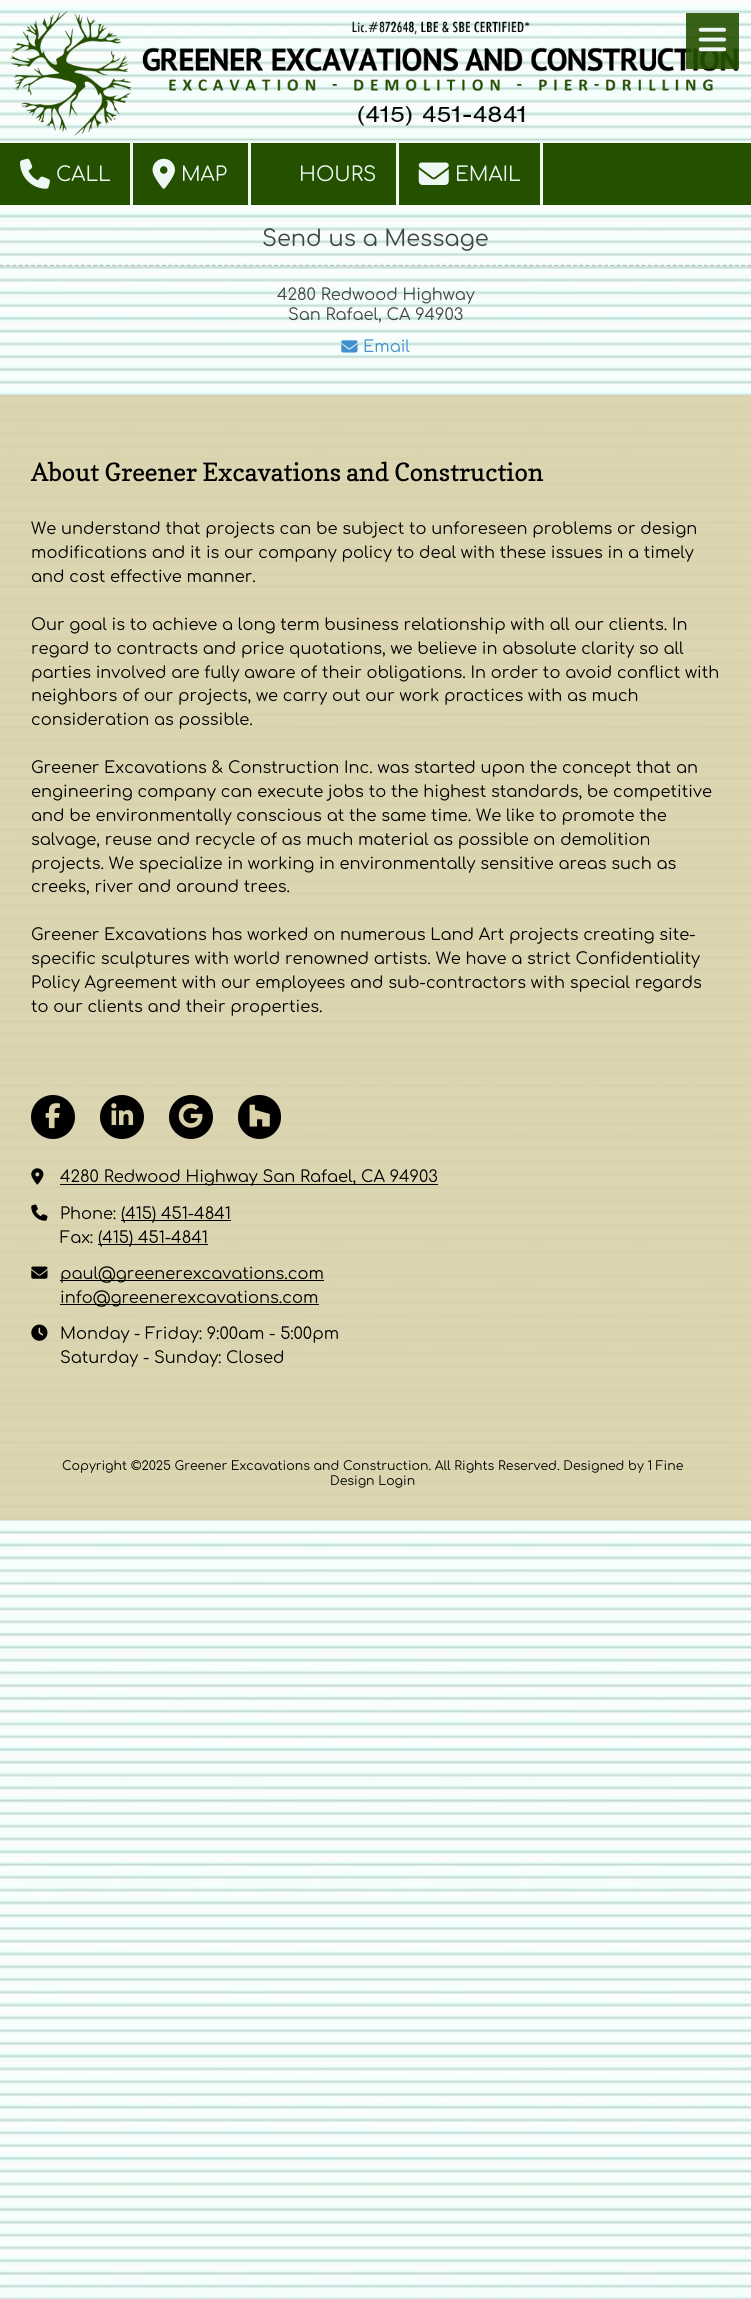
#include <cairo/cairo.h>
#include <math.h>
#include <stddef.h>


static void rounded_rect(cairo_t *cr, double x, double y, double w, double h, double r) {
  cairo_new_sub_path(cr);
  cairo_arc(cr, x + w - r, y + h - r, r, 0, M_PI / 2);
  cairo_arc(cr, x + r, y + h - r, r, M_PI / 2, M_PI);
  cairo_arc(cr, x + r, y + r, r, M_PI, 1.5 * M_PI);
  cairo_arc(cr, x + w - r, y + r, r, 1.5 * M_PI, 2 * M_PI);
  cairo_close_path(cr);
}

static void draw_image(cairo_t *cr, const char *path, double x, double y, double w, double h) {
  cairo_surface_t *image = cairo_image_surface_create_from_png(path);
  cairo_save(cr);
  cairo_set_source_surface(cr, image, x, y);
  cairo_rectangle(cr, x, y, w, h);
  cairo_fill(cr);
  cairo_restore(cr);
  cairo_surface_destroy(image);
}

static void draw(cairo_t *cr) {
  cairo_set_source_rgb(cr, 1, 1, 1);
  cairo_paint(cr);
  draw_image(cr, "images/1.png", 0, 0, 751, 2299);
  draw_image(cr, "images/2.png", 9, 11, 730, 125);
  cairo_set_source_rgba(cr, 37 / 255.0, 80 / 255.0, 0, 0.9);
  cairo_rectangle(cr, 686, 13, 53, 56);
  cairo_fill(cr);
  draw_image(cr, "images/3.png", 698, 27, 29, 25);
  cairo_set_source_rgb(cr, 37 / 255.0, 80 / 255.0, 0);
  cairo_rectangle(cr, 0, 143, 751, 62);
  cairo_fill(cr);
  cairo_set_source_rgb(cr, 237 / 255.0, 248 / 255.0, 245 / 255.0);
  cairo_rectangle(cr, 130, 143, 3, 62);
  cairo_fill(cr);
  draw_image(cr, "images/4.png", 20, 158, 30, 31);
  cairo_rectangle(cr, 248, 143, 3, 62);
  cairo_fill(cr);
  draw_image(cr, "images/5.png", 152, 158, 23, 31);
  cairo_rectangle(cr, 396, 143, 3, 62);
  cairo_fill(cr);
  cairo_rectangle(cr, 540, 143, 3, 62);
  cairo_fill(cr);
  draw_image(cr, "images/6.png", 418, 162, 31, 23);
  cairo_new_path(cr);
  cairo_move_to(cr, 0, 265.5);
  cairo_line_to(cr, 751, 265.5);
  cairo_set_source_rgb(cr, 183 / 255.0, 183 / 255.0, 183 / 255.0);
  cairo_set_line_width(cr, 1.2);
  cairo_set_dash(cr, (double[]){3.75, 2.48}, 2, 0);
  cairo_stroke(cr);
  draw_image(cr, "images/7.png", 341, 340, 17, 13);
  cairo_set_source_rgba(cr, 217 / 255.0, 208 / 255.0, 167 / 255.0, 0.89);
  cairo_rectangle(cr, 0, 395, 751, 1125);
  cairo_fill(cr);
  cairo_set_source_rgb(cr, 0, 0, 0);
  cairo_arc(cr, 53, 1117, 22, 0, 2 * M_PI);
  cairo_fill(cr);
  draw_image(cr, "images/8.png", 45, 1103, 15, 26);
  cairo_arc(cr, 122, 1117, 22, 0, 2 * M_PI);
  cairo_fill(cr);
  draw_image(cr, "images/9.png", 111, 1103, 23, 22);
  cairo_arc(cr, 191, 1117, 22, 0, 2 * M_PI);
  cairo_fill(cr);
  draw_image(cr, "images/10.png", 178, 1103, 25, 25);
  rounded_rect(cr, 238, 1095, 43, 44, 21.5);
  cairo_fill(cr);
  draw_image(cr, "images/11.png", 249, 1104, 21, 23);
  draw_image(cr, "images/12.png", 31, 1168, 13, 17);
  cairo_rectangle(cr, 60, 1184, 378, 1);
  cairo_fill(cr);
  draw_image(cr, "images/13.png", 31, 1204, 17, 17);
  cairo_rectangle(cr, 121, 1220, 110, 1);
  cairo_fill(cr);
  cairo_rectangle(cr, 98, 1244, 110, 1);
  cairo_fill(cr);
  draw_image(cr, "images/14.png", 31, 1266, 17, 13);
  cairo_rectangle(cr, 60, 1280, 264, 1);
  cairo_fill(cr);
  cairo_rectangle(cr, 60, 1304, 259, 1);
  cairo_fill(cr);
  draw_image(cr, "images/15.png", 31, 1324, 17, 17);
  cairo_select_font_face(cr, "Comfortaa", CAIRO_FONT_SLANT_NORMAL, CAIRO_FONT_WEIGHT_NORMAL);
  cairo_set_font_size(cr, 20);
  cairo_set_source_rgb(cr, 237 / 255.0, 248 / 255.0, 245 / 255.0);
  cairo_move_to(cr, 56, 181);
  cairo_show_text(cr, "CALL");
  cairo_move_to(cr, 181, 181);
  cairo_show_text(cr, "MAP");
  cairo_move_to(cr, 299, 181);
  cairo_show_text(cr, "HOURS");
  cairo_move_to(cr, 455, 181);
  cairo_show_text(cr, "EMAIL");
  cairo_set_font_size(cr, 22.5);
  cairo_set_source_rgb(cr, 68 / 255.0, 68 / 255.0, 68 / 255.0);
  cairo_move_to(cr, 262, 246);
  cairo_show_text(cr, "Send us a Message");
  cairo_set_font_size(cr, 16.25);
  cairo_move_to(cr, 277, 300);
  cairo_show_text(cr, "4280 Redwood Highway");
  cairo_move_to(cr, 288, 320);
  cairo_show_text(cr, "San Rafael, CA 94903");
  cairo_set_source_rgb(cr, 64 / 255.0, 144 / 255.0, 205 / 255.0);
  cairo_move_to(cr, 363, 352);
  cairo_show_text(cr, "Email");
  cairo_select_font_face(cr, "Copse", CAIRO_FONT_SLANT_NORMAL, CAIRO_FONT_WEIGHT_NORMAL);
  cairo_set_font_size(cr, 25);
  cairo_set_source_rgb(cr, 0, 0, 0);
  cairo_move_to(cr, 31, 481);
  cairo_show_text(cr, "About Greener Excavations and Construction");
  cairo_select_font_face(cr, "Comfortaa", CAIRO_FONT_SLANT_NORMAL, CAIRO_FONT_WEIGHT_NORMAL);
  cairo_set_font_size(cr, 16.25);
  cairo_move_to(cr, 31, 534);
  cairo_show_text(cr, "We understand that projects can be subject to unforeseen problems or design");
  cairo_move_to(cr, 31, 558);
  cairo_show_text(cr, "modifications and it is our company policy to deal with these issues in a timely");
  cairo_move_to(cr, 31, 582);
  cairo_show_text(cr, "and cost effective manner.");
  cairo_move_to(cr, 31, 630);
  cairo_show_text(cr, "Our goal is to achieve a long term business relationship with all our clients. In");
  cairo_move_to(cr, 31, 654);
  cairo_show_text(cr, "regard to contracts and price quotations, we believe in absolute clarity so all");
  cairo_move_to(cr, 31, 678);
  cairo_show_text(cr, "parties involved are fully aware of their obligations. In order to avoid conflict with");
  cairo_move_to(cr, 31, 701);
  cairo_show_text(cr, "neighbors of our projects, we carry out our work practices with as much");
  cairo_move_to(cr, 31, 725);
  cairo_show_text(cr, "consideration as possible.");
  cairo_move_to(cr, 31, 773);
  cairo_show_text(cr, "Greener Excavations & Construction Inc. was started upon the concept that an");
  cairo_move_to(cr, 31, 797);
  cairo_show_text(cr, "engineering company can execute jobs to the highest standards, be competitive");
  cairo_move_to(cr, 31, 821);
  cairo_show_text(cr, "and be environmentally conscious at the same time. We like to promote the");
  cairo_move_to(cr, 31, 845);
  cairo_show_text(cr, "salvage, reuse and recycle of as much material as possible on demolition");
  cairo_move_to(cr, 31, 869);
  cairo_show_text(cr, "projects. We specialize in working in environmentally sensitive areas such as");
  cairo_move_to(cr, 31, 892);
  cairo_show_text(cr, "creeks, river and around trees.");
  cairo_move_to(cr, 31, 940);
  cairo_show_text(cr, "Greener Excavations has worked on numerous Land Art projects creating site-");
  cairo_move_to(cr, 31, 964);
  cairo_show_text(cr, "specific sculptures with world renowned artists. We have a strict Confidentiality");
  cairo_move_to(cr, 31, 988);
  cairo_show_text(cr, "Policy Agreement with our employees and sub-contractors with special regards");
  cairo_move_to(cr, 31, 1012);
  cairo_show_text(cr, "to our clients and their properties.");
  cairo_move_to(cr, 60, 1182);
  cairo_show_text(cr, "4280 Redwood Highway San Rafael, CA 94903");
  cairo_move_to(cr, 60, 1219);
  cairo_show_text(cr, "Phone:");
  cairo_move_to(cr, 121, 1219);
  cairo_show_text(cr, "(415) 451-4841");
  cairo_move_to(cr, 60, 1243);
  cairo_show_text(cr, "Fax:");
  cairo_move_to(cr, 98, 1243);
  cairo_show_text(cr, "(415) 451-4841");
  cairo_move_to(cr, 60, 1279);
  cairo_show_text(cr, "paul@greenerexcavations.com");
  cairo_move_to(cr, 60, 1303);
  cairo_show_text(cr, "info@greenerexcavations.com");
  cairo_move_to(cr, 60, 1339);
  cairo_show_text(cr, "Monday - Friday: 9:00am - 5:00pm");
  cairo_move_to(cr, 60, 1363);
  cairo_show_text(cr, "Saturday - Sunday: Closed");
  cairo_set_font_size(cr, 12.5);
  cairo_move_to(cr, 62, 1470);
  cairo_show_text(cr, "Copyright ©2025 Greener Excavations and Construction. All Rights Reserved. Designed by 1 Fine");
  cairo_move_to(cr, 330, 1485);
  cairo_show_text(cr, "Design Login");
}

int main(void) {
  cairo_surface_t *surface = cairo_image_surface_create(CAIRO_FORMAT_RGB24, 751, 2299);
  cairo_t *cr = cairo_create(surface);
  cairo_font_options_t *options = cairo_font_options_create();
  cairo_font_options_set_hint_metrics(options, CAIRO_HINT_METRICS_OFF);
  cairo_font_options_set_hint_style(options, CAIRO_HINT_STYLE_NONE);
  cairo_set_font_options(cr, options);
  cairo_set_miter_limit(cr, 4);
  draw(cr);
  cairo_surface_write_to_png(surface, "out.png");
  cairo_font_options_destroy(options);
  cairo_destroy(cr);
  cairo_surface_destroy(surface);
  return 0;
}
